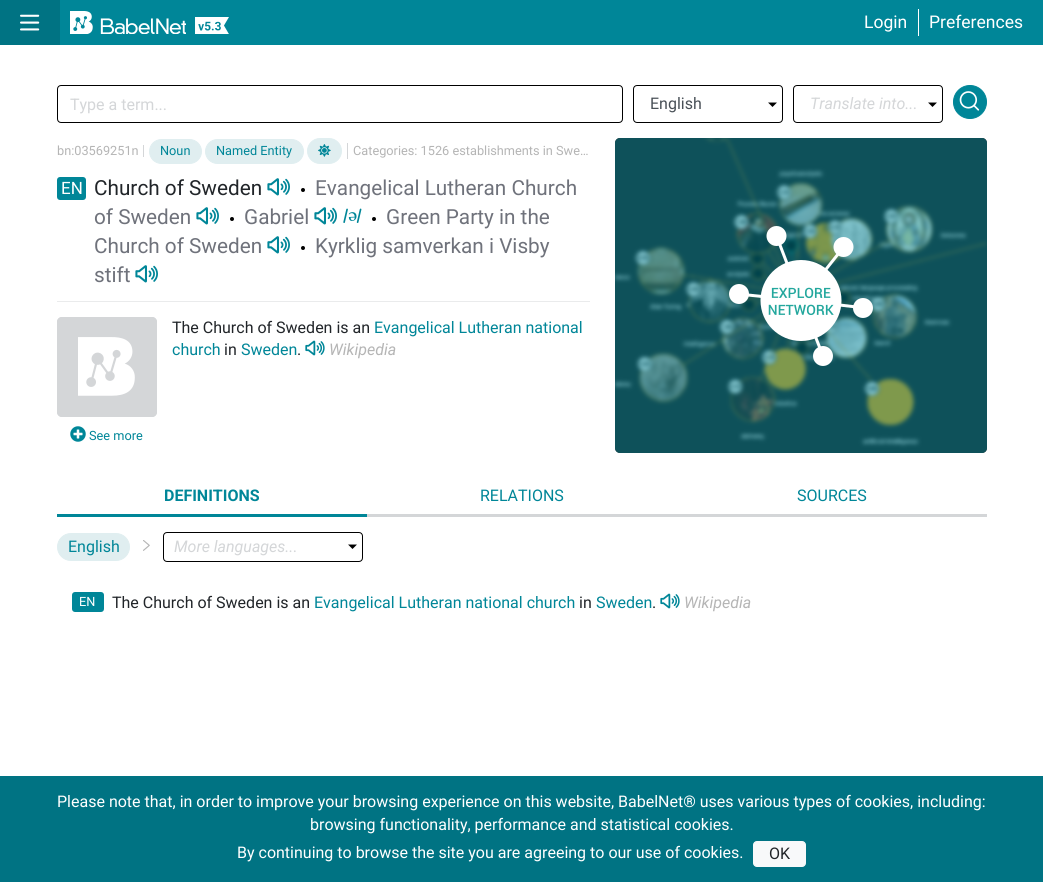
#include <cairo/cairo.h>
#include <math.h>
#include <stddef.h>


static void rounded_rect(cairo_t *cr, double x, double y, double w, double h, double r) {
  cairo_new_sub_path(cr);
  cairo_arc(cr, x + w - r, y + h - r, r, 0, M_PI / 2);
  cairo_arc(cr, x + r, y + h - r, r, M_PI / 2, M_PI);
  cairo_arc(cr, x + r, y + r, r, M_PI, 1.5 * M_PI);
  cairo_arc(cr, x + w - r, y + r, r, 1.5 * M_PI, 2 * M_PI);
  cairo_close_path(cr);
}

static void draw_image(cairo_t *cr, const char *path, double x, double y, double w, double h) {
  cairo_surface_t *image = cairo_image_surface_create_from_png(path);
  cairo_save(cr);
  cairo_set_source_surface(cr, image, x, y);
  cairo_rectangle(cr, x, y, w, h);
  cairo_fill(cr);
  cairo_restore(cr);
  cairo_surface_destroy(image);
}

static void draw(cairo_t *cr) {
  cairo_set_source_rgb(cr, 1, 1, 1);
  cairo_paint(cr);
  cairo_set_source_rgb(cr, 0, 134 / 255.0, 152 / 255.0);
  cairo_rectangle(cr, 60, 0, 983, 45);
  cairo_fill(cr);
  cairo_set_source_rgb(cr, 0, 115 / 255.0, 131 / 255.0);
  cairo_rectangle(cr, 0, 0, 60, 45);
  cairo_fill(cr);
  draw_image(cr, "images/1.png", 20, 14, 20, 17);
  draw_image(cr, "images/2.png", 70, 11, 116, 23);
  draw_image(cr, "images/3.png", 195, 17, 34, 17);
  cairo_set_source_rgb(cr, 1, 1, 1);
  cairo_rectangle(cr, 918, 9, 1, 27);
  cairo_fill(cr);
  rounded_rect(cr, 57.5, 85.5, 565, 37, 3.5);
  cairo_set_source_rgb(cr, 0, 0, 0);
  cairo_set_line_width(cr, 1);
  cairo_stroke(cr);
  rounded_rect(cr, 633.5, 85.5, 149, 37, 3.5);
  cairo_stroke(cr);
  cairo_new_path(cr);
  cairo_move_to(cr, 772.5, 107);
  cairo_line_to(cr, 768, 102.5);
  cairo_line_to(cr, 777, 102.5);
  cairo_close_path(cr);
  cairo_fill(cr);
  rounded_rect(cr, 793.5, 85.5, 149, 37, 3.5);
  cairo_stroke(cr);
  cairo_new_path(cr);
  cairo_move_to(cr, 932.5, 107);
  cairo_line_to(cr, 928, 102.5);
  cairo_line_to(cr, 937, 102.5);
  cairo_close_path(cr);
  cairo_fill(cr);
  cairo_set_source_rgb(cr, 0, 134 / 255.0, 152 / 255.0);
  cairo_arc(cr, 970, 102, 16.5, 0, 2 * M_PI);
  cairo_fill_preserve(cr);
  cairo_stroke(cr);
  draw_image(cr, "images/4.png", 959, 91, 21, 20);
  cairo_set_source_rgb(cr, 212 / 255.0, 214 / 255.0, 216 / 255.0);
  cairo_rectangle(cr, 143, 145, 1, 12);
  cairo_fill(cr);
  cairo_set_source_rgb(cr, 224 / 255.0, 238 / 255.0, 240 / 255.0);
  rounded_rect(cr, 149.5, 139.5, 52, 24, 12);
  cairo_fill_preserve(cr);
  cairo_stroke(cr);
  rounded_rect(cr, 205.5, 139.5, 98, 24, 12);
  cairo_fill_preserve(cr);
  cairo_stroke(cr);
  rounded_rect(cr, 307.5, 138.5, 34, 25, 12.5);
  cairo_fill_preserve(cr);
  cairo_stroke(cr);
  draw_image(cr, "images/5.png", 318, 144, 13, 13);
  cairo_set_source_rgb(cr, 212 / 255.0, 214 / 255.0, 216 / 255.0);
  cairo_rectangle(cr, 347, 143, 1, 16);
  cairo_fill(cr);
  cairo_set_source_rgb(cr, 234 / 255.0, 235 / 255.0, 236 / 255.0);
  cairo_rectangle(cr, 57, 301, 533, 1);
  cairo_fill(cr);
  cairo_set_source_rgb(cr, 0, 134 / 255.0, 152 / 255.0);
  rounded_rect(cr, 57, 177, 29, 23, 3);
  cairo_fill(cr);
  draw_image(cr, "images/6.png", 267, 178, 23, 18);
  cairo_set_source_rgb(cr, 0, 0, 0);
  cairo_arc(cr, 303, 190, 2, 0, 2 * M_PI);
  cairo_fill(cr);
  draw_image(cr, "images/6.png", 196, 207, 23, 18);
  cairo_arc(cr, 232, 219, 2, 0, 2 * M_PI);
  cairo_fill(cr);
  draw_image(cr, "images/6.png", 314, 207, 23, 18);
  draw_image(cr, "images/7.png", 343, 208, 19, 15);
  cairo_arc(cr, 374, 219, 2, 0, 2 * M_PI);
  cairo_fill(cr);
  draw_image(cr, "images/6.png", 267, 236, 23, 18);
  cairo_arc(cr, 303, 248, 2, 0, 2 * M_PI);
  cairo_fill(cr);
  draw_image(cr, "images/6.png", 135, 265, 23, 18);
  draw_image(cr, "images/8.png", 305, 340, 20, 16);
  cairo_set_source_rgb(cr, 212 / 255.0, 214 / 255.0, 216 / 255.0);
  rounded_rect(cr, 57, 317, 100, 100, 5);
  cairo_fill(cr);
  draw_image(cr, "images/9.png", 78, 337, 57, 59);
  rounded_rect(cr, 57.5, 317.5, 99, 99, 4.5);
  cairo_stroke(cr);
  draw_image(cr, "images/10.png", 70, 426, 16, 16);
  cairo_set_source_rgb(cr, 29 / 255.0, 29 / 255.0, 29 / 255.0);
  rounded_rect(cr, 615, 138, 372, 315, 5);
  cairo_fill(cr);
  draw_image(cr, "images/11.png", 615, 138, 372, 315);
  cairo_set_source_rgba(cr, 0, 134 / 255.0, 152 / 255.0, 0.5);
  rounded_rect(cr, 615, 138, 372, 315, 5);
  cairo_fill(cr);
  draw_image(cr, "images/12.png", 729, 226, 144, 140);
  cairo_set_source_rgb(cr, 0, 134 / 255.0, 152 / 255.0);
  cairo_rectangle(cr, 57, 514, 310, 3);
  cairo_fill(cr);
  cairo_set_source_rgb(cr, 212 / 255.0, 214 / 255.0, 216 / 255.0);
  cairo_rectangle(cr, 367, 514, 620, 3);
  cairo_fill(cr);
  cairo_set_source_rgb(cr, 224 / 255.0, 238 / 255.0, 240 / 255.0);
  rounded_rect(cr, 57.5, 533.5, 72, 27, 13.5);
  cairo_fill_preserve(cr);
  cairo_stroke(cr);
  draw_image(cr, "images/13.png", 143, 540, 7, 11);
  rounded_rect(cr, 163.5, 532.5, 199, 29, 3.5);
  cairo_set_source_rgb(cr, 0, 0, 0);
  cairo_stroke(cr);
  cairo_new_path(cr);
  cairo_move_to(cr, 352.5, 549);
  cairo_line_to(cr, 348, 544.5);
  cairo_line_to(cr, 357, 544.5);
  cairo_close_path(cr);
  cairo_fill(cr);
  cairo_set_source_rgb(cr, 0, 134 / 255.0, 152 / 255.0);
  rounded_rect(cr, 72, 592, 32, 20, 3);
  cairo_fill(cr);
  draw_image(cr, "images/8.png", 660, 593, 20, 16);
  cairo_set_source_rgb(cr, 0, 115 / 255.0, 131 / 255.0);
  cairo_rectangle(cr, 0, 776, 1043, 106);
  cairo_fill(cr);
  cairo_set_source_rgb(cr, 248 / 255.0, 249 / 255.0, 250 / 255.0);
  rounded_rect(cr, 753.5, 841.5, 52, 25, 3.5);
  cairo_fill_preserve(cr);
  cairo_stroke(cr);
  cairo_select_font_face(cr, "Roboto", CAIRO_FONT_SLANT_NORMAL, CAIRO_FONT_WEIGHT_NORMAL);
  cairo_set_font_size(cr, 17.5);
  cairo_set_source_rgb(cr, 1, 1, 1);
  cairo_move_to(cr, 864, 28);
  cairo_show_text(cr, "Login");
  cairo_move_to(cr, 929, 28);
  cairo_show_text(cr, "Preferences");
  cairo_set_font_size(cr, 16);
  cairo_set_source_rgb(cr, 212 / 255.0, 214 / 255.0, 216 / 255.0);
  cairo_move_to(cr, 70, 110);
  cairo_show_text(cr, "Type a term...");
  cairo_set_source_rgb(cr, 73 / 255.0, 80 / 255.0, 87 / 255.0);
  cairo_move_to(cr, 650, 109);
  cairo_show_text(cr, "English");
  cairo_select_font_face(cr, "Roboto", CAIRO_FONT_SLANT_ITALIC, CAIRO_FONT_WEIGHT_NORMAL);
  cairo_set_source_rgb(cr, 212 / 255.0, 214 / 255.0, 216 / 255.0);
  cairo_move_to(cr, 810, 109);
  cairo_show_text(cr, "Translate into...");
  cairo_select_font_face(cr, "Roboto", CAIRO_FONT_SLANT_NORMAL, CAIRO_FONT_WEIGHT_NORMAL);
  cairo_set_font_size(cr, 12.75);
  cairo_set_source_rgb(cr, 181 / 255.0, 181 / 255.0, 181 / 255.0);
  cairo_move_to(cr, 57, 155);
  cairo_show_text(cr, "bn:03569251n");
  cairo_set_source_rgb(cr, 0, 134 / 255.0, 152 / 255.0);
  cairo_move_to(cr, 160, 155);
  cairo_show_text(cr, "Noun");
  cairo_move_to(cr, 216, 155);
  cairo_show_text(cr, "Named Entity");
  cairo_set_source_rgb(cr, 181 / 255.0, 181 / 255.0, 181 / 255.0);
  cairo_move_to(cr, 353, 155);
  cairo_show_text(cr, "Categories: 1526 establishments in Swe…");
  cairo_set_font_size(cr, 17);
  cairo_set_source_rgb(cr, 1, 1, 1);
  cairo_move_to(cr, 61, 194);
  cairo_show_text(cr, "EN");
  cairo_set_font_size(cr, 20.75);
  cairo_set_source_rgb(cr, 33 / 255.0, 37 / 255.0, 41 / 255.0);
  cairo_move_to(cr, 94, 195);
  cairo_show_text(cr, "Church of Sweden");
  cairo_set_source_rgb(cr, 111 / 255.0, 114 / 255.0, 123 / 255.0);
  cairo_move_to(cr, 315, 195);
  cairo_show_text(cr, "Evangelical Lutheran Church");
  cairo_move_to(cr, 94, 224);
  cairo_show_text(cr, "of Sweden");
  cairo_move_to(cr, 244, 224);
  cairo_show_text(cr, "Gabriel");
  cairo_move_to(cr, 386, 224);
  cairo_show_text(cr, "Green Party in the");
  cairo_move_to(cr, 94, 253);
  cairo_show_text(cr, "Church of Sweden");
  cairo_move_to(cr, 315, 253);
  cairo_show_text(cr, "Kyrklig samverkan i Visby");
  cairo_move_to(cr, 94, 282);
  cairo_show_text(cr, "stift");
  cairo_set_font_size(cr, 16);
  cairo_set_source_rgb(cr, 33 / 255.0, 37 / 255.0, 41 / 255.0);
  cairo_move_to(cr, 172, 333);
  cairo_show_text(cr, "The Church of Sweden is an");
  cairo_set_source_rgb(cr, 0, 134 / 255.0, 152 / 255.0);
  cairo_move_to(cr, 374, 333);
  cairo_show_text(cr, "Evangelical Lutheran national");
  cairo_move_to(cr, 172, 355);
  cairo_show_text(cr, "church");
  cairo_set_source_rgb(cr, 33 / 255.0, 37 / 255.0, 41 / 255.0);
  cairo_move_to(cr, 224, 355);
  cairo_show_text(cr, "in");
  cairo_set_source_rgb(cr, 0, 134 / 255.0, 152 / 255.0);
  cairo_move_to(cr, 241, 355);
  cairo_show_text(cr, "Sweden");
  cairo_set_source_rgb(cr, 33 / 255.0, 37 / 255.0, 41 / 255.0);
  cairo_move_to(cr, 297, 355);
  cairo_show_text(cr, ".");
  cairo_select_font_face(cr, "Roboto", CAIRO_FONT_SLANT_ITALIC, CAIRO_FONT_WEIGHT_NORMAL);
  cairo_set_source_rgb(cr, 181 / 255.0, 181 / 255.0, 181 / 255.0);
  cairo_move_to(cr, 329, 355);
  cairo_show_text(cr, "Wikipedia");
  cairo_select_font_face(cr, "Roboto", CAIRO_FONT_SLANT_NORMAL, CAIRO_FONT_WEIGHT_NORMAL);
  cairo_set_font_size(cr, 12.75);
  cairo_set_source_rgb(cr, 0, 134 / 255.0, 152 / 255.0);
  cairo_move_to(cr, 89, 440);
  cairo_show_text(cr, "See more");
  cairo_select_font_face(cr, "Roboto", CAIRO_FONT_SLANT_NORMAL, CAIRO_FONT_WEIGHT_BOLD);
  cairo_set_font_size(cr, 16);
  cairo_move_to(cr, 164, 501);
  cairo_show_text(cr, "DEFINITIONS");
  cairo_select_font_face(cr, "Roboto", CAIRO_FONT_SLANT_NORMAL, CAIRO_FONT_WEIGHT_NORMAL);
  cairo_move_to(cr, 480, 501);
  cairo_show_text(cr, "RELATIONS");
  cairo_move_to(cr, 797, 501);
  cairo_show_text(cr, "SOURCES");
  cairo_move_to(cr, 68, 552);
  cairo_show_text(cr, "English");
  cairo_select_font_face(cr, "Roboto", CAIRO_FONT_SLANT_ITALIC, CAIRO_FONT_WEIGHT_NORMAL);
  cairo_set_source_rgb(cr, 212 / 255.0, 214 / 255.0, 216 / 255.0);
  cairo_move_to(cr, 174, 552);
  cairo_show_text(cr, "More languages...");
  cairo_select_font_face(cr, "Roboto", CAIRO_FONT_SLANT_NORMAL, CAIRO_FONT_WEIGHT_NORMAL);
  cairo_set_font_size(cr, 12.75);
  cairo_set_source_rgb(cr, 1, 1, 1);
  cairo_move_to(cr, 79, 606);
  cairo_show_text(cr, "EN");
  cairo_set_font_size(cr, 16);
  cairo_set_source_rgb(cr, 33 / 255.0, 37 / 255.0, 41 / 255.0);
  cairo_move_to(cr, 112, 608);
  cairo_show_text(cr, "The Church of Sweden is an");
  cairo_set_source_rgb(cr, 0, 134 / 255.0, 152 / 255.0);
  cairo_move_to(cr, 314, 608);
  cairo_show_text(cr, "Evangelical Lutheran national church");
  cairo_set_source_rgb(cr, 33 / 255.0, 37 / 255.0, 41 / 255.0);
  cairo_move_to(cr, 579, 608);
  cairo_show_text(cr, "in");
  cairo_set_source_rgb(cr, 0, 134 / 255.0, 152 / 255.0);
  cairo_move_to(cr, 596, 608);
  cairo_show_text(cr, "Sweden");
  cairo_set_source_rgb(cr, 33 / 255.0, 37 / 255.0, 41 / 255.0);
  cairo_move_to(cr, 652, 608);
  cairo_show_text(cr, ".");
  cairo_select_font_face(cr, "Roboto", CAIRO_FONT_SLANT_ITALIC, CAIRO_FONT_WEIGHT_NORMAL);
  cairo_set_source_rgb(cr, 181 / 255.0, 181 / 255.0, 181 / 255.0);
  cairo_move_to(cr, 684, 608);
  cairo_show_text(cr, "Wikipedia");
  cairo_select_font_face(cr, "Roboto", CAIRO_FONT_SLANT_NORMAL, CAIRO_FONT_WEIGHT_NORMAL);
  cairo_set_source_rgb(cr, 1, 1, 1);
  cairo_move_to(cr, 57, 807);
  cairo_show_text(cr, "Please note that, in order to improve your browsing experience on this website, BabelNet® uses various types of cookies, including:");
  cairo_move_to(cr, 310, 830);
  cairo_show_text(cr, "browsing functionality, performance and statistical cookies.");
  cairo_move_to(cr, 237, 858);
  cairo_show_text(cr, "By continuing to browse the site you are agreeing to our use of cookies.");
  cairo_set_source_rgb(cr, 33 / 255.0, 37 / 255.0, 41 / 255.0);
  cairo_move_to(cr, 769, 859);
  cairo_show_text(cr, "OK");
}

int main(void) {
  cairo_surface_t *surface = cairo_image_surface_create(CAIRO_FORMAT_RGB24, 1043, 882);
  cairo_t *cr = cairo_create(surface);
  cairo_font_options_t *options = cairo_font_options_create();
  cairo_font_options_set_hint_metrics(options, CAIRO_HINT_METRICS_OFF);
  cairo_font_options_set_hint_style(options, CAIRO_HINT_STYLE_NONE);
  cairo_set_font_options(cr, options);
  cairo_set_miter_limit(cr, 4);
  draw(cr);
  cairo_surface_write_to_png(surface, "out.png");
  cairo_font_options_destroy(options);
  cairo_destroy(cr);
  cairo_surface_destroy(surface);
  return 0;
}
